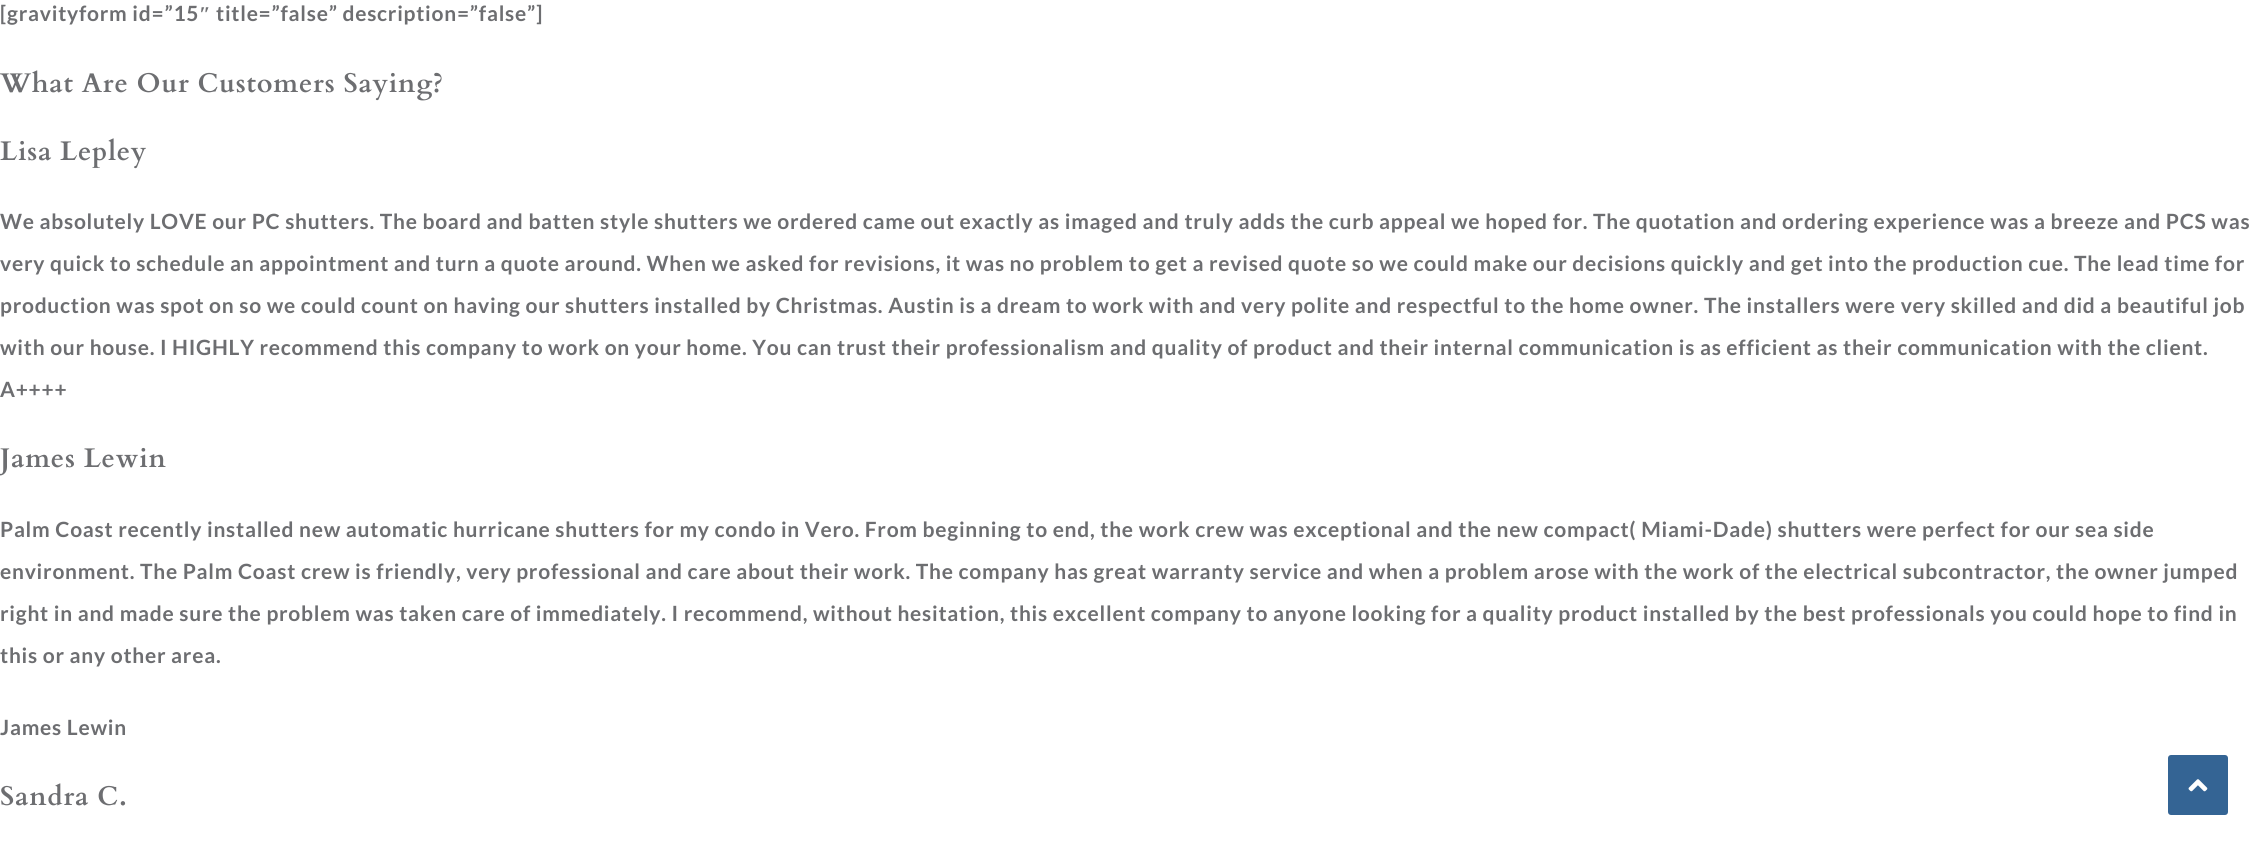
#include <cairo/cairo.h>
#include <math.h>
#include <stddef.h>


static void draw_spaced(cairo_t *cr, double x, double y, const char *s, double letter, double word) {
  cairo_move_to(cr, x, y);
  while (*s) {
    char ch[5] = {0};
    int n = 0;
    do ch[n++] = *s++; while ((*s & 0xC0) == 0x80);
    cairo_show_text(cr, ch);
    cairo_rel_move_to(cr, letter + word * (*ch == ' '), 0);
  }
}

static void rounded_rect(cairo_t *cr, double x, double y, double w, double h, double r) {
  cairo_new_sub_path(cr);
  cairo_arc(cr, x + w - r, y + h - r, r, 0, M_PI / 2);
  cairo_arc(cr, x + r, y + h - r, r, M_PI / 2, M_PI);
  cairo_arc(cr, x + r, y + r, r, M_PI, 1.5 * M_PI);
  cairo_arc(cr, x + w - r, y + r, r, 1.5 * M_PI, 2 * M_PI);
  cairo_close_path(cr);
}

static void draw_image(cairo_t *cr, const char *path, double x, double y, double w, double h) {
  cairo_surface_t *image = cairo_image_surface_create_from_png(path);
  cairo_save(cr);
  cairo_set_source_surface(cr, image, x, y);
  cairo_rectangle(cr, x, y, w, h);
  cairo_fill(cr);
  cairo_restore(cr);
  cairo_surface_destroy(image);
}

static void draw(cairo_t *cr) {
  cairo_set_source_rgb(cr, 1, 1, 1);
  cairo_paint(cr);
  cairo_set_source_rgb(cr, 52 / 255.0, 100 / 255.0, 148 / 255.0);
  rounded_rect(cr, 2168, 755, 60, 60, 3);
  cairo_fill(cr);
  draw_image(cr, "images/1.png", 2188, 779, 20, 13);
  cairo_select_font_face(cr, "Lato", CAIRO_FONT_SLANT_NORMAL, CAIRO_FONT_WEIGHT_BOLD);
  cairo_set_font_size(cr, 21);
  cairo_set_source_rgb(cr, 109 / 255.0, 110 / 255.0, 113 / 255.0);
  draw_spaced(cr, 0, 21, "[gravityform id=”15", 0.75, 0);
  cairo_select_font_face(cr, "Liberation Serif", CAIRO_FONT_SLANT_NORMAL, CAIRO_FONT_WEIGHT_BOLD);
  draw_spaced(cr, 199, 21, "″", 0.75, 0);
  cairo_select_font_face(cr, "Lato", CAIRO_FONT_SLANT_NORMAL, CAIRO_FONT_WEIGHT_BOLD);
  draw_spaced(cr, 216, 21, "title=”false” description=”false”]", 0.75, 0);
  cairo_select_font_face(cr, "Cardo", CAIRO_FONT_SLANT_NORMAL, CAIRO_FONT_WEIGHT_BOLD);
  cairo_set_font_size(cr, 27);
  draw_spaced(cr, 0, 92, "What Are Our Customers Saying?", 0.75, 0);
  draw_spaced(cr, 0, 160, "Lisa Lepley", 0.75, 0);
  cairo_select_font_face(cr, "Lato", CAIRO_FONT_SLANT_NORMAL, CAIRO_FONT_WEIGHT_BOLD);
  cairo_set_font_size(cr, 21);
  draw_spaced(cr, 0, 229, "We absolutely LOVE our PC shutters. The board and batten style shutters we ordered came out exactly as imaged and truly adds the curb appeal we hoped for. The quotation and ordering experience was a breeze and PCS was", 0.75, 0);
  draw_spaced(cr, 0, 271, "very quick to schedule an appointment and turn a quote around. When we asked for revisions, it was no problem to get a revised quote so we could make our decisions quickly and get into the production cue. The lead time for", 0.75, 0);
  draw_spaced(cr, 0, 313, "production was spot on so we could count on having our shutters installed by Christmas. Austin is a dream to work with and very polite and respectful to the home owner. The installers were very skilled and did a beautiful job", 0.75, 0);
  draw_spaced(cr, 0, 355, "with our house. I HIGHLY recommend this company to work on your home. You can trust their professionalism and quality of product and their internal communication is as efficient as their communication with the client.", 0.75, 0);
  draw_spaced(cr, 0, 397, "A++++", 0.75, 0);
  cairo_select_font_face(cr, "Cardo", CAIRO_FONT_SLANT_NORMAL, CAIRO_FONT_WEIGHT_BOLD);
  cairo_set_font_size(cr, 27);
  draw_spaced(cr, 0, 467, "James Lewin", 0.75, 0);
  cairo_select_font_face(cr, "Lato", CAIRO_FONT_SLANT_NORMAL, CAIRO_FONT_WEIGHT_BOLD);
  cairo_set_font_size(cr, 21);
  draw_spaced(cr, 0, 537, "Palm Coast recently installed new automatic hurricane shutters for my condo in Vero. From beginning to end, the work crew was exceptional and the new compact( Miami-Dade) shutters were perfect for our sea side", 0.75, 0);
  draw_spaced(cr, 0, 579, "environment. The Palm Coast crew is friendly, very professional and care about their work. The company has great warranty service and when a problem arose with the work of the electrical subcontractor, the owner jumped", 0.75, 0);
  draw_spaced(cr, 0, 621, "right in and made sure the problem was taken care of immediately. I recommend, without hesitation, this excellent company to anyone looking for a quality product installed by the best professionals you could hope to find in", 0.75, 0);
  draw_spaced(cr, 0, 663, "this or any other area.", 0.75, 0);
  draw_spaced(cr, 0, 735, "James Lewin", 0.75, 0);
  cairo_select_font_face(cr, "Cardo", CAIRO_FONT_SLANT_NORMAL, CAIRO_FONT_WEIGHT_BOLD);
  cairo_set_font_size(cr, 27);
  draw_spaced(cr, 0, 805, "Sandra C.", 0.75, 0);
}

int main(void) {
  cairo_surface_t *surface = cairo_image_surface_create(CAIRO_FORMAT_RGB24, 2257, 844);
  cairo_t *cr = cairo_create(surface);
  cairo_font_options_t *options = cairo_font_options_create();
  cairo_font_options_set_hint_metrics(options, CAIRO_HINT_METRICS_OFF);
  cairo_font_options_set_hint_style(options, CAIRO_HINT_STYLE_NONE);
  cairo_set_font_options(cr, options);
  cairo_set_miter_limit(cr, 4);
  draw(cr);
  cairo_surface_write_to_png(surface, "out.png");
  cairo_font_options_destroy(options);
  cairo_destroy(cr);
  cairo_surface_destroy(surface);
  return 0;
}
